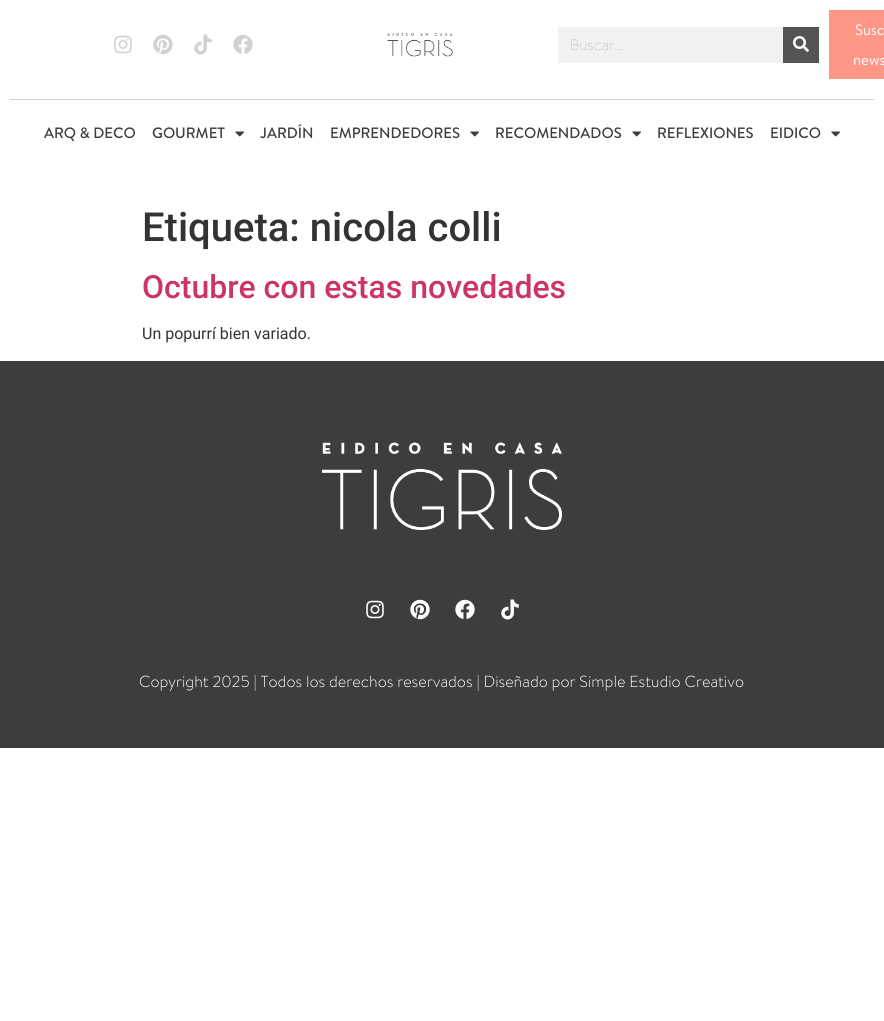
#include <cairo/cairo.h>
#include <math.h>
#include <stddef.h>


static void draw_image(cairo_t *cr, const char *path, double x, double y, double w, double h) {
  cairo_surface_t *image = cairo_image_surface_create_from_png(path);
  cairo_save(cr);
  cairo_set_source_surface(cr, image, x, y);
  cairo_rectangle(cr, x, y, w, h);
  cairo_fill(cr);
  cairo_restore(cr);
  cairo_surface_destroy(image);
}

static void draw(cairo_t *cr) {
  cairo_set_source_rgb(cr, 1, 1, 1);
  cairo_paint(cr);
  draw_image(cr, "images/1.png", 114, 35, 18, 19);
  draw_image(cr, "images/2.png", 153, 34, 20, 21);
  draw_image(cr, "images/3.png", 194, 34, 18, 21);
  draw_image(cr, "images/4.png", 233, 34, 20, 20);
  draw_image(cr, "images/5.png", 387, 33, 66, 24);
  cairo_set_source_rgb(cr, 241 / 255.0, 242 / 255.0, 243 / 255.0);
  cairo_rectangle(cr, 558, 27, 225, 36);
  cairo_fill(cr);
  cairo_set_source_rgb(cr, 84 / 255.0, 84 / 255.0, 84 / 255.0);
  cairo_rectangle(cr, 783, 27, 36, 36);
  cairo_fill(cr);
  draw_image(cr, "images/6.png", 793, 36, 16, 16);
  cairo_set_source_rgb(cr, 254 / 255.0, 151 / 255.0, 134 / 255.0);
  cairo_rectangle(cr, 829, 10, 55, 69);
  cairo_fill(cr);
  cairo_set_source_rgb(cr, 209 / 255.0, 209 / 255.0, 209 / 255.0);
  cairo_rectangle(cr, 10, 99, 864, 1);
  cairo_fill(cr);
  draw_image(cr, "images/7.png", 235, 131, 9, 6);
  draw_image(cr, "images/7.png", 470, 131, 9, 6);
  draw_image(cr, "images/7.png", 632, 131, 9, 6);
  draw_image(cr, "images/7.png", 831, 131, 9, 6);
  cairo_set_source_rgb(cr, 61 / 255.0, 61 / 255.0, 61 / 255.0);
  cairo_rectangle(cr, 0, 361, 884, 387);
  cairo_fill(cr);
  draw_image(cr, "images/8.png", 322, 442, 240, 88);
  draw_image(cr, "images/9.png", 366, 600, 18, 19);
  draw_image(cr, "images/10.png", 410, 599, 20, 21);
  draw_image(cr, "images/11.png", 455, 599, 20, 20);
  draw_image(cr, "images/12.png", 501, 599, 18, 21);
  cairo_select_font_face(cr, "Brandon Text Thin", CAIRO_FONT_SLANT_NORMAL, CAIRO_FONT_WEIGHT_NORMAL);
  cairo_set_font_size(cr, 15);
  cairo_set_source_rgb(cr, 147 / 255.0, 147 / 255.0, 148 / 255.0);
  cairo_move_to(cr, 570, 50);
  cairo_show_text(cr, "Buscar...");
  cairo_select_font_face(cr, "Brandon Text", CAIRO_FONT_SLANT_NORMAL, CAIRO_FONT_WEIGHT_NORMAL);
  cairo_set_source_rgb(cr, 1, 1, 1);
  cairo_move_to(cr, 855, 35);
  cairo_show_text(cr, "Susc");
  cairo_move_to(cr, 853, 65);
  cairo_show_text(cr, "news");
  cairo_select_font_face(cr, "Brandon Text Medium", CAIRO_FONT_SLANT_NORMAL, CAIRO_FONT_WEIGHT_NORMAL);
  cairo_set_source_rgb(cr, 61 / 255.0, 61 / 255.0, 61 / 255.0);
  cairo_move_to(cr, 44, 138);
  cairo_show_text(cr, "ARQ & DECO");
  cairo_move_to(cr, 152, 138);
  cairo_show_text(cr, "GOURMET");
  cairo_move_to(cr, 260, 138);
  cairo_show_text(cr, "JARDÍN");
  cairo_move_to(cr, 330, 138);
  cairo_show_text(cr, "EMPRENDEDORES");
  cairo_move_to(cr, 495, 138);
  cairo_show_text(cr, "RECOMENDADOS");
  cairo_move_to(cr, 657, 138);
  cairo_show_text(cr, "REFLEXIONES");
  cairo_move_to(cr, 770, 138);
  cairo_show_text(cr, "EIDICO");
  cairo_select_font_face(cr, "Roboto Medium", CAIRO_FONT_SLANT_NORMAL, CAIRO_FONT_WEIGHT_NORMAL);
  cairo_set_font_size(cr, 40);
  cairo_set_source_rgb(cr, 51 / 255.0, 51 / 255.0, 51 / 255.0);
  cairo_move_to(cr, 142, 241);
  cairo_show_text(cr, "Etiqueta: nicola colli");
  cairo_set_font_size(cr, 32);
  cairo_set_source_rgb(cr, 204 / 255.0, 51 / 255.0, 102 / 255.0);
  cairo_move_to(cr, 142, 298);
  cairo_show_text(cr, "Octubre con estas novedades");
  cairo_select_font_face(cr, "Roboto", CAIRO_FONT_SLANT_NORMAL, CAIRO_FONT_WEIGHT_NORMAL);
  cairo_set_font_size(cr, 16);
  cairo_set_source_rgb(cr, 51 / 255.0, 51 / 255.0, 51 / 255.0);
  cairo_move_to(cr, 142, 339);
  cairo_show_text(cr, "Un popurrí bien variado.");
  cairo_select_font_face(cr, "Brandon Text Light", CAIRO_FONT_SLANT_NORMAL, CAIRO_FONT_WEIGHT_NORMAL);
  cairo_set_source_rgb(cr, 1, 1, 1);
  cairo_move_to(cr, 139, 687);
  cairo_show_text(cr, "Copyright 2025 | Todos los derechos reservados | Diseñado por Simple Estudio Creativo");
}

int main(void) {
  cairo_surface_t *surface = cairo_image_surface_create(CAIRO_FORMAT_RGB24, 884, 1021);
  cairo_t *cr = cairo_create(surface);
  cairo_font_options_t *options = cairo_font_options_create();
  cairo_font_options_set_hint_metrics(options, CAIRO_HINT_METRICS_OFF);
  cairo_font_options_set_hint_style(options, CAIRO_HINT_STYLE_NONE);
  cairo_set_font_options(cr, options);
  cairo_set_miter_limit(cr, 4);
  draw(cr);
  cairo_surface_write_to_png(surface, "out.png");
  cairo_font_options_destroy(options);
  cairo_destroy(cr);
  cairo_surface_destroy(surface);
  return 0;
}
